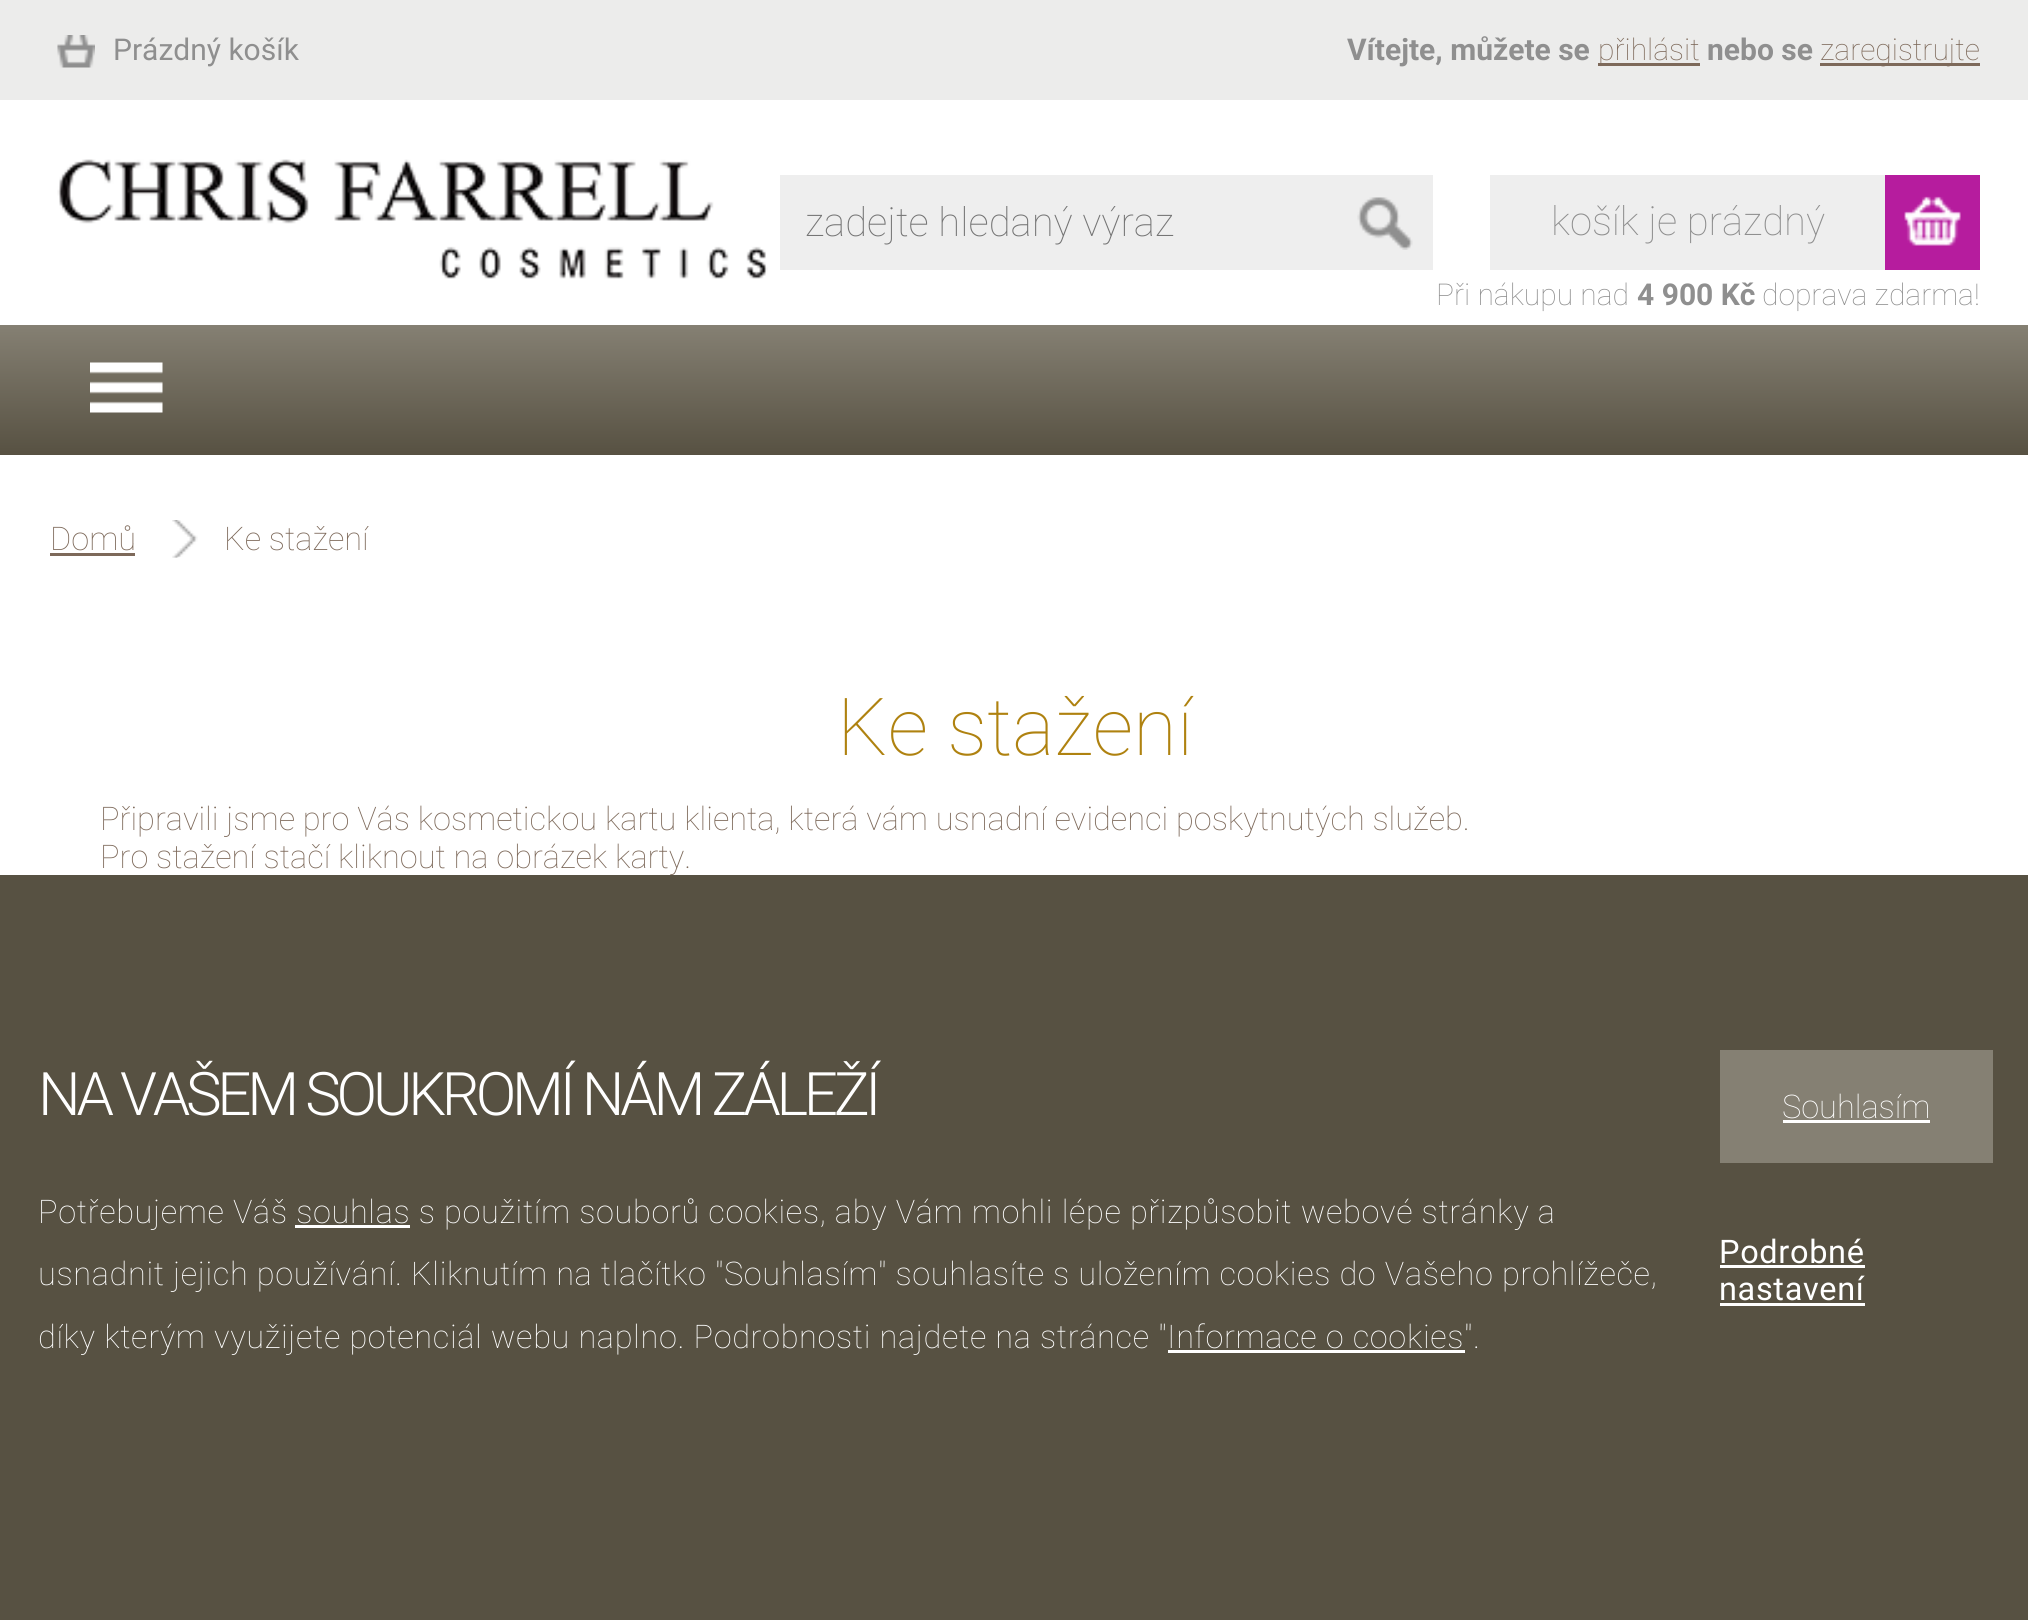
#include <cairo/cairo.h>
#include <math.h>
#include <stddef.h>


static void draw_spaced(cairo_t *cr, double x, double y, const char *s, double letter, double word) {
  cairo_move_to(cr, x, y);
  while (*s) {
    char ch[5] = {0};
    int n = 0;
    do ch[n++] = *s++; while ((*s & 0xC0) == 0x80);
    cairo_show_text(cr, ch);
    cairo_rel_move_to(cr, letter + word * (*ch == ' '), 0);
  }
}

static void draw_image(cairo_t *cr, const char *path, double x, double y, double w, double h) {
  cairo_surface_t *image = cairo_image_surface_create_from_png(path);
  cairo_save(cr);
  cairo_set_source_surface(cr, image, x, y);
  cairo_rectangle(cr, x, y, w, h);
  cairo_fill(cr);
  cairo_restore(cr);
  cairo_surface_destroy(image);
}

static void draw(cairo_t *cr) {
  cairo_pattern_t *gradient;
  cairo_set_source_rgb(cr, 1, 1, 1);
  cairo_paint(cr);
  cairo_set_source_rgb(cr, 236 / 255.0, 236 / 255.0, 235 / 255.0);
  cairo_rectangle(cr, 0, 0, 2028, 100);
  cairo_fill(cr);
  draw_image(cr, "images/1.png", 57, 35, 38, 33);
  cairo_set_source_rgb(cr, 125 / 255.0, 105 / 255.0, 90 / 255.0);
  cairo_rectangle(cr, 1598, 63, 102, 3);
  cairo_fill(cr);
  cairo_rectangle(cr, 1820, 63, 160, 3);
  cairo_fill(cr);
  draw_image(cr, "images/2.png", 57, 159, 711, 120);
  cairo_set_source_rgb(cr, 238 / 255.0, 238 / 255.0, 238 / 255.0);
  cairo_rectangle(cr, 780, 175, 653, 95);
  cairo_fill(cr);
  draw_image(cr, "images/3.png", 1357, 197, 56, 53);
  cairo_rectangle(cr, 1490, 175, 395, 95);
  cairo_fill(cr);
  cairo_set_source_rgb(cr, 182 / 255.0, 28 / 255.0, 158 / 255.0);
  cairo_rectangle(cr, 1885, 175, 95, 95);
  cairo_fill(cr);
  draw_image(cr, "images/4.png", 1904, 196, 57, 50);
  gradient = cairo_pattern_create_linear(1015, 325, 1015, 455);
  cairo_pattern_add_color_stop_rgba(gradient, 0, 133 / 255.0, 128 / 255.0, 115 / 255.0, 1);
  cairo_pattern_add_color_stop_rgba(gradient, 1, 87 / 255.0, 81 / 255.0, 66 / 255.0, 1);
  cairo_set_source(cr, gradient);
  cairo_pattern_destroy(gradient);
  cairo_rectangle(cr, 0, 325, 2028, 130);
  cairo_fill(cr);
  draw_image(cr, "images/5.png", 90, 362, 73, 51);
  cairo_set_source_rgb(cr, 125 / 255.0, 105 / 255.0, 90 / 255.0);
  cairo_rectangle(cr, 50, 553, 85, 3);
  cairo_fill(cr);
  draw_image(cr, "images/6.png", 172, 520, 26, 38);
  cairo_set_source_rgb(cr, 87 / 255.0, 81 / 255.0, 66 / 255.0);
  cairo_rectangle(cr, 0, 875, 2028, 745);
  cairo_fill(cr);
  cairo_set_source_rgb(cr, 1, 1, 1);
  cairo_rectangle(cr, 295, 1225, 115, 3);
  cairo_fill(cr);
  cairo_rectangle(cr, 1168, 1350, 297, 3);
  cairo_fill(cr);
  cairo_set_source_rgb(cr, 133 / 255.0, 128 / 255.0, 115 / 255.0);
  cairo_rectangle(cr, 1720, 1050, 273, 113);
  cairo_fill(cr);
  cairo_set_source_rgb(cr, 1, 1, 1);
  cairo_rectangle(cr, 1783, 1120, 147, 3);
  cairo_fill(cr);
  cairo_rectangle(cr, 1720, 1265, 145, 3);
  cairo_fill(cr);
  cairo_rectangle(cr, 1720, 1303, 145, 3);
  cairo_fill(cr);
  cairo_select_font_face(cr, "Roboto", CAIRO_FONT_SLANT_NORMAL, CAIRO_FONT_WEIGHT_NORMAL);
  cairo_set_font_size(cr, 30);
  cairo_set_source_rgb(cr, 143 / 255.0, 143 / 255.0, 143 / 255.0);
  cairo_move_to(cr, 113, 60);
  cairo_show_text(cr, "Prázdný košík");
  cairo_select_font_face(cr, "Roboto", CAIRO_FONT_SLANT_NORMAL, CAIRO_FONT_WEIGHT_BOLD);
  cairo_move_to(cr, 1347, 60);
  cairo_show_text(cr, "Vítejte, můžete se");
  cairo_select_font_face(cr, "Roboto Thin", CAIRO_FONT_SLANT_NORMAL, CAIRO_FONT_WEIGHT_NORMAL);
  cairo_set_source_rgb(cr, 125 / 255.0, 105 / 255.0, 90 / 255.0);
  cairo_move_to(cr, 1598, 60);
  cairo_show_text(cr, "přihlásit");
  cairo_select_font_face(cr, "Roboto", CAIRO_FONT_SLANT_NORMAL, CAIRO_FONT_WEIGHT_BOLD);
  cairo_set_source_rgb(cr, 143 / 255.0, 143 / 255.0, 143 / 255.0);
  cairo_move_to(cr, 1707, 60);
  cairo_show_text(cr, "nebo se");
  cairo_select_font_face(cr, "Roboto Thin", CAIRO_FONT_SLANT_NORMAL, CAIRO_FONT_WEIGHT_NORMAL);
  cairo_set_source_rgb(cr, 125 / 255.0, 105 / 255.0, 90 / 255.0);
  cairo_move_to(cr, 1820, 60);
  cairo_show_text(cr, "zaregistrujte");
  cairo_set_font_size(cr, 40);
  cairo_set_source_rgb(cr, 117 / 255.0, 117 / 255.0, 117 / 255.0);
  cairo_move_to(cr, 805, 236);
  cairo_show_text(cr, "zadejte hledaný výraz");
  cairo_set_source_rgb(cr, 143 / 255.0, 143 / 255.0, 143 / 255.0);
  cairo_move_to(cr, 1551, 235);
  cairo_show_text(cr, "košík je prázdný");
  cairo_set_font_size(cr, 30);
  cairo_move_to(cr, 1436, 305);
  cairo_show_text(cr, "Při nákupu nad");
  cairo_select_font_face(cr, "Roboto", CAIRO_FONT_SLANT_NORMAL, CAIRO_FONT_WEIGHT_BOLD);
  cairo_move_to(cr, 1637, 305);
  cairo_show_text(cr, "4 900 Kč");
  cairo_select_font_face(cr, "Roboto Thin", CAIRO_FONT_SLANT_NORMAL, CAIRO_FONT_WEIGHT_NORMAL);
  cairo_move_to(cr, 1762, 305);
  cairo_show_text(cr, "doprava zdarma!");
  cairo_set_font_size(cr, 32.5);
  cairo_set_source_rgb(cr, 125 / 255.0, 105 / 255.0, 90 / 255.0);
  cairo_move_to(cr, 50, 550);
  cairo_show_text(cr, "Domů");
  cairo_move_to(cr, 224, 550);
  cairo_show_text(cr, "Ke stažení");
  cairo_set_font_size(cr, 80);
  cairo_set_source_rgb(cr, 175 / 255.0, 130 / 255.0, 16 / 255.0);
  cairo_move_to(cr, 837, 755);
  cairo_show_text(cr, "Ke stažení");
  cairo_set_font_size(cr, 32.5);
  cairo_set_source_rgb(cr, 125 / 255.0, 105 / 255.0, 90 / 255.0);
  cairo_move_to(cr, 100, 830);
  cairo_show_text(cr, "Připravili jsme pro Vás kosmetickou kartu klienta, která vám usnadní evidenci poskytnutých služeb.");
  cairo_move_to(cr, 100, 868);
  cairo_show_text(cr, "Pro stažení stačí kliknout na obrázek karty.");
  cairo_select_font_face(cr, "Roboto Light", CAIRO_FONT_SLANT_NORMAL, CAIRO_FONT_WEIGHT_NORMAL);
  cairo_set_font_size(cr, 60);
  cairo_set_source_rgb(cr, 1, 1, 1);
  draw_spaced(cr, 38, 1115, "NA VAŠEM SOUKROMÍ NÁM ZÁLEŽÍ", -4.25, 0);
  cairo_select_font_face(cr, "Roboto Thin", CAIRO_FONT_SLANT_NORMAL, CAIRO_FONT_WEIGHT_NORMAL);
  cairo_set_font_size(cr, 32.5);
  draw_spaced(cr, 38, 1223, "Potřebujeme Váš souhlas s použitím souborů cookies, aby Vám mohli lépe přizpůsobit webové stránky a", 0.65, 0);
  draw_spaced(cr, 38, 1285, "usnadnit jejich používání. Kliknutím na tlačítko \"Souhlasím\" souhlasíte s uložením cookies do Vašeho prohlížeče,", 0.65, 0);
  draw_spaced(cr, 38, 1348, "díky kterým využijete potenciál webu naplno. Podrobnosti najdete na stránce \"Informace o cookies\".", 0.65, 0);
  cairo_move_to(cr, 1782, 1118);
  cairo_show_text(cr, "Souhlasím");
  cairo_select_font_face(cr, "Roboto", CAIRO_FONT_SLANT_NORMAL, CAIRO_FONT_WEIGHT_NORMAL);
  draw_spaced(cr, 1719, 1263, "Podrobné", 0.65, 0);
  draw_spaced(cr, 1719, 1300, "nastavení", 0.65, 0);
}

int main(void) {
  cairo_surface_t *surface = cairo_image_surface_create(CAIRO_FORMAT_RGB24, 2028, 1620);
  cairo_t *cr = cairo_create(surface);
  cairo_font_options_t *options = cairo_font_options_create();
  cairo_font_options_set_hint_metrics(options, CAIRO_HINT_METRICS_OFF);
  cairo_font_options_set_hint_style(options, CAIRO_HINT_STYLE_NONE);
  cairo_set_font_options(cr, options);
  cairo_set_miter_limit(cr, 4);
  draw(cr);
  cairo_surface_write_to_png(surface, "out.png");
  cairo_font_options_destroy(options);
  cairo_destroy(cr);
  cairo_surface_destroy(surface);
  return 0;
}
